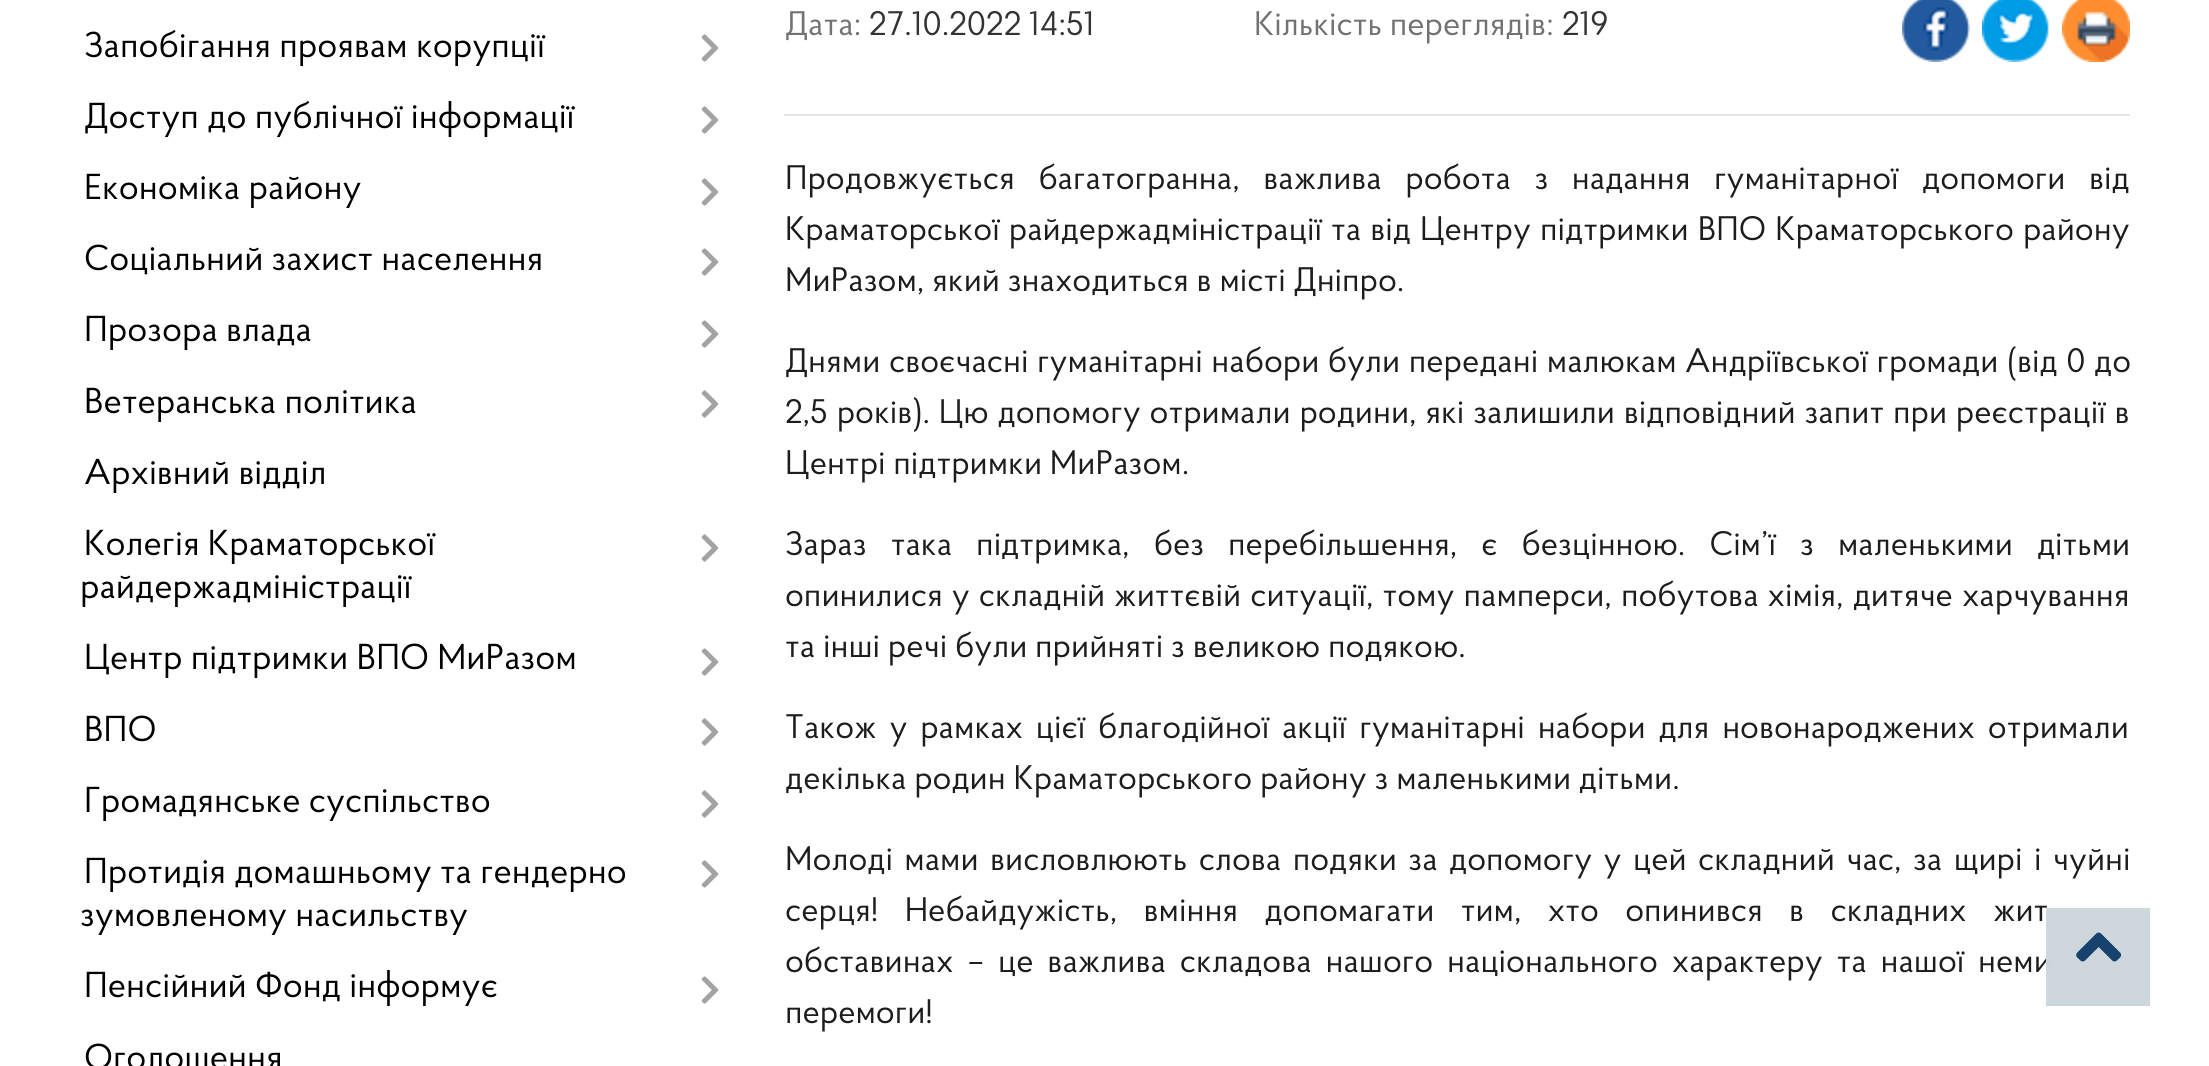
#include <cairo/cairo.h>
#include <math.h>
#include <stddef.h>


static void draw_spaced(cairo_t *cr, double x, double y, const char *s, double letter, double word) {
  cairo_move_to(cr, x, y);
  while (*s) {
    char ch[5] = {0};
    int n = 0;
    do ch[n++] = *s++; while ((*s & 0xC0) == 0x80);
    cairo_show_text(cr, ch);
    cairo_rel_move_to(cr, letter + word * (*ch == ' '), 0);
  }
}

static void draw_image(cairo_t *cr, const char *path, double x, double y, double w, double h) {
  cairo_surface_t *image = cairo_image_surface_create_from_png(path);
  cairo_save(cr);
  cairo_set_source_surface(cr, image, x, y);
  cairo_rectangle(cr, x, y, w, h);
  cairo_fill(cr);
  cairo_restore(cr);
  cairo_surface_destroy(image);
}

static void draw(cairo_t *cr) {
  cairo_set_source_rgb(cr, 1, 1, 1);
  cairo_paint(cr);
  draw_image(cr, "images/1.png", 701, 34, 18, 28);
  draw_image(cr, "images/1.png", 701, 106, 18, 28);
  draw_image(cr, "images/1.png", 701, 178, 18, 28);
  draw_image(cr, "images/1.png", 701, 248, 18, 28);
  draw_image(cr, "images/1.png", 701, 320, 18, 28);
  draw_image(cr, "images/1.png", 701, 390, 18, 28);
  draw_image(cr, "images/1.png", 701, 534, 18, 28);
  draw_image(cr, "images/1.png", 701, 648, 18, 28);
  draw_image(cr, "images/1.png", 701, 718, 18, 28);
  draw_image(cr, "images/1.png", 701, 790, 18, 28);
  draw_image(cr, "images/1.png", 701, 860, 18, 28);
  draw_image(cr, "images/1.png", 701, 976, 18, 28);
  draw_image(cr, "images/2.png", 1902, 0, 68, 62);
  draw_image(cr, "images/3.png", 1982, 0, 67, 62);
  draw_image(cr, "images/4.png", 2062, 0, 68, 62);
  cairo_set_source_rgb(cr, 229 / 255.0, 229 / 255.0, 229 / 255.0);
  cairo_rectangle(cr, 784, 114, 1346, 2);
  cairo_fill(cr);
  cairo_select_font_face(cr, "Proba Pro", CAIRO_FONT_SLANT_NORMAL, CAIRO_FONT_WEIGHT_NORMAL);
  cairo_set_font_size(cr, 36);
  cairo_set_source_rgb(cr, 0, 0, 0);
  cairo_move_to(cr, 84, 57);
  cairo_show_text(cr, "Запобігання проявам корупції");
  cairo_move_to(cr, 84, 128);
  cairo_show_text(cr, "Доступ до публічної інформації");
  cairo_move_to(cr, 84, 199);
  cairo_show_text(cr, "Економіка району");
  cairo_move_to(cr, 84, 270);
  cairo_show_text(cr, "Соціальний захист населення");
  cairo_move_to(cr, 84, 341);
  cairo_show_text(cr, "Прозора влада");
  cairo_move_to(cr, 84, 413);
  cairo_show_text(cr, "Ветеранська політика");
  cairo_move_to(cr, 84, 484);
  cairo_show_text(cr, "Архівний відділ");
  cairo_move_to(cr, 84, 555);
  cairo_show_text(cr, "Колегія Краматорської");
  cairo_move_to(cr, 80, 598);
  cairo_show_text(cr, "райдержадміністрації");
  cairo_move_to(cr, 84, 669);
  cairo_show_text(cr, "Центр підтримки ВПО МиРазом");
  cairo_move_to(cr, 84, 741);
  cairo_show_text(cr, "ВПО");
  cairo_move_to(cr, 84, 812);
  cairo_show_text(cr, "Громадянське суспільство");
  cairo_move_to(cr, 84, 883);
  cairo_show_text(cr, "Протидія домашньому та гендерно");
  cairo_move_to(cr, 80, 926);
  cairo_show_text(cr, "зумовленому насильству");
  cairo_move_to(cr, 84, 997);
  cairo_show_text(cr, "Пенсійний Фонд інформує");
  cairo_move_to(cr, 84, 1069);
  cairo_show_text(cr, "Оголошення");
  cairo_set_font_size(cr, 34);
  cairo_set_source_rgb(cr, 114 / 255.0, 114 / 255.0, 114 / 255.0);
  cairo_move_to(cr, 785, 35);
  cairo_show_text(cr, "Дата:");
  cairo_set_source_rgb(cr, 51 / 255.0, 51 / 255.0, 51 / 255.0);
  cairo_move_to(cr, 869, 35);
  cairo_show_text(cr, "27.10.2022 14:51");
  cairo_set_source_rgb(cr, 114 / 255.0, 114 / 255.0, 114 / 255.0);
  cairo_move_to(cr, 1254, 35);
  cairo_show_text(cr, "Кількість переглядів:");
  cairo_set_source_rgb(cr, 51 / 255.0, 51 / 255.0, 51 / 255.0);
  cairo_move_to(cr, 1562, 35);
  cairo_show_text(cr, "219");
  cairo_set_source_rgb(cr, 29 / 255.0, 29 / 255.0, 27 / 255.0);
  draw_spaced(cr, 785, 189, "Продовжується багатогранна, важлива робота з надання гуманітарної допомоги від", 0, 15.75);
  draw_spaced(cr, 785, 240, "Краматорської райдержадміністрації та від Центру підтримки ВПО Краматорського району", 0, 1.25);
  cairo_move_to(cr, 785, 291);
  cairo_show_text(cr, "МиРазом, який знаходиться в місті Дніпро.");
  draw_spaced(cr, 785, 372, "Днями своєчасні гуманітарні набори були передані малюкам Андріївської громади (від 0 до", 0, 0.75);
  draw_spaced(cr, 785, 423, "2,5 років). Цю допомогу отримали родини, які залишили відповідний запит при реєстрації в", 0, 1);
  cairo_move_to(cr, 785, 474);
  cairo_show_text(cr, "Центрі підтримки МиРазом.");
  draw_spaced(cr, 785, 555, "Зараз така підтримка, без перебільшення, є безцінною. Сім’ї з маленькими дітьми", 0, 16.25);
  draw_spaced(cr, 785, 606, "опинилися у складній життєвій ситуації, тому памперси, побутова хімія, дитяче харчування", 0, 1.25);
  cairo_move_to(cr, 785, 657);
  cairo_show_text(cr, "та інші речі були прийняті з великою подякою.");
  draw_spaced(cr, 785, 738, "Також у рамках цієї благодійної акції гуманітарні набори для новонароджених отримали", 0, 5);
  cairo_move_to(cr, 785, 789);
  cairo_show_text(cr, "декілька родин Краматорського району з маленькими дітьми.");
  draw_spaced(cr, 785, 870, "Молоді мами висловлюють слова подяки за допомогу у цей складний час, за щирі і чуйні", 0, 3.6);
  draw_spaced(cr, 785, 921, "серця! Небайдужість, вміння допомагати тим, хто опинився в складних жит", 0, 18.5);
  draw_spaced(cr, 785, 972, "обставинах – це важлива складова нашого національного характеру та нашої неми", 0, 6);
  cairo_move_to(cr, 785, 1023);
  cairo_show_text(cr, "перемоги!");
  cairo_set_source_rgba(cr, 206 / 255.0, 215 / 255.0, 220 / 255.0, 0.99);
  cairo_rectangle(cr, 2046, 908, 104, 98);
  cairo_fill(cr);
  draw_image(cr, "images/5.png", 2076, 932, 46, 30);
}

int main(void) {
  cairo_surface_t *surface = cairo_image_surface_create(CAIRO_FORMAT_RGB24, 2209, 1066);
  cairo_t *cr = cairo_create(surface);
  cairo_font_options_t *options = cairo_font_options_create();
  cairo_font_options_set_hint_metrics(options, CAIRO_HINT_METRICS_OFF);
  cairo_font_options_set_hint_style(options, CAIRO_HINT_STYLE_NONE);
  cairo_set_font_options(cr, options);
  cairo_set_miter_limit(cr, 4);
  draw(cr);
  cairo_surface_write_to_png(surface, "out.png");
  cairo_font_options_destroy(options);
  cairo_destroy(cr);
  cairo_surface_destroy(surface);
  return 0;
}
